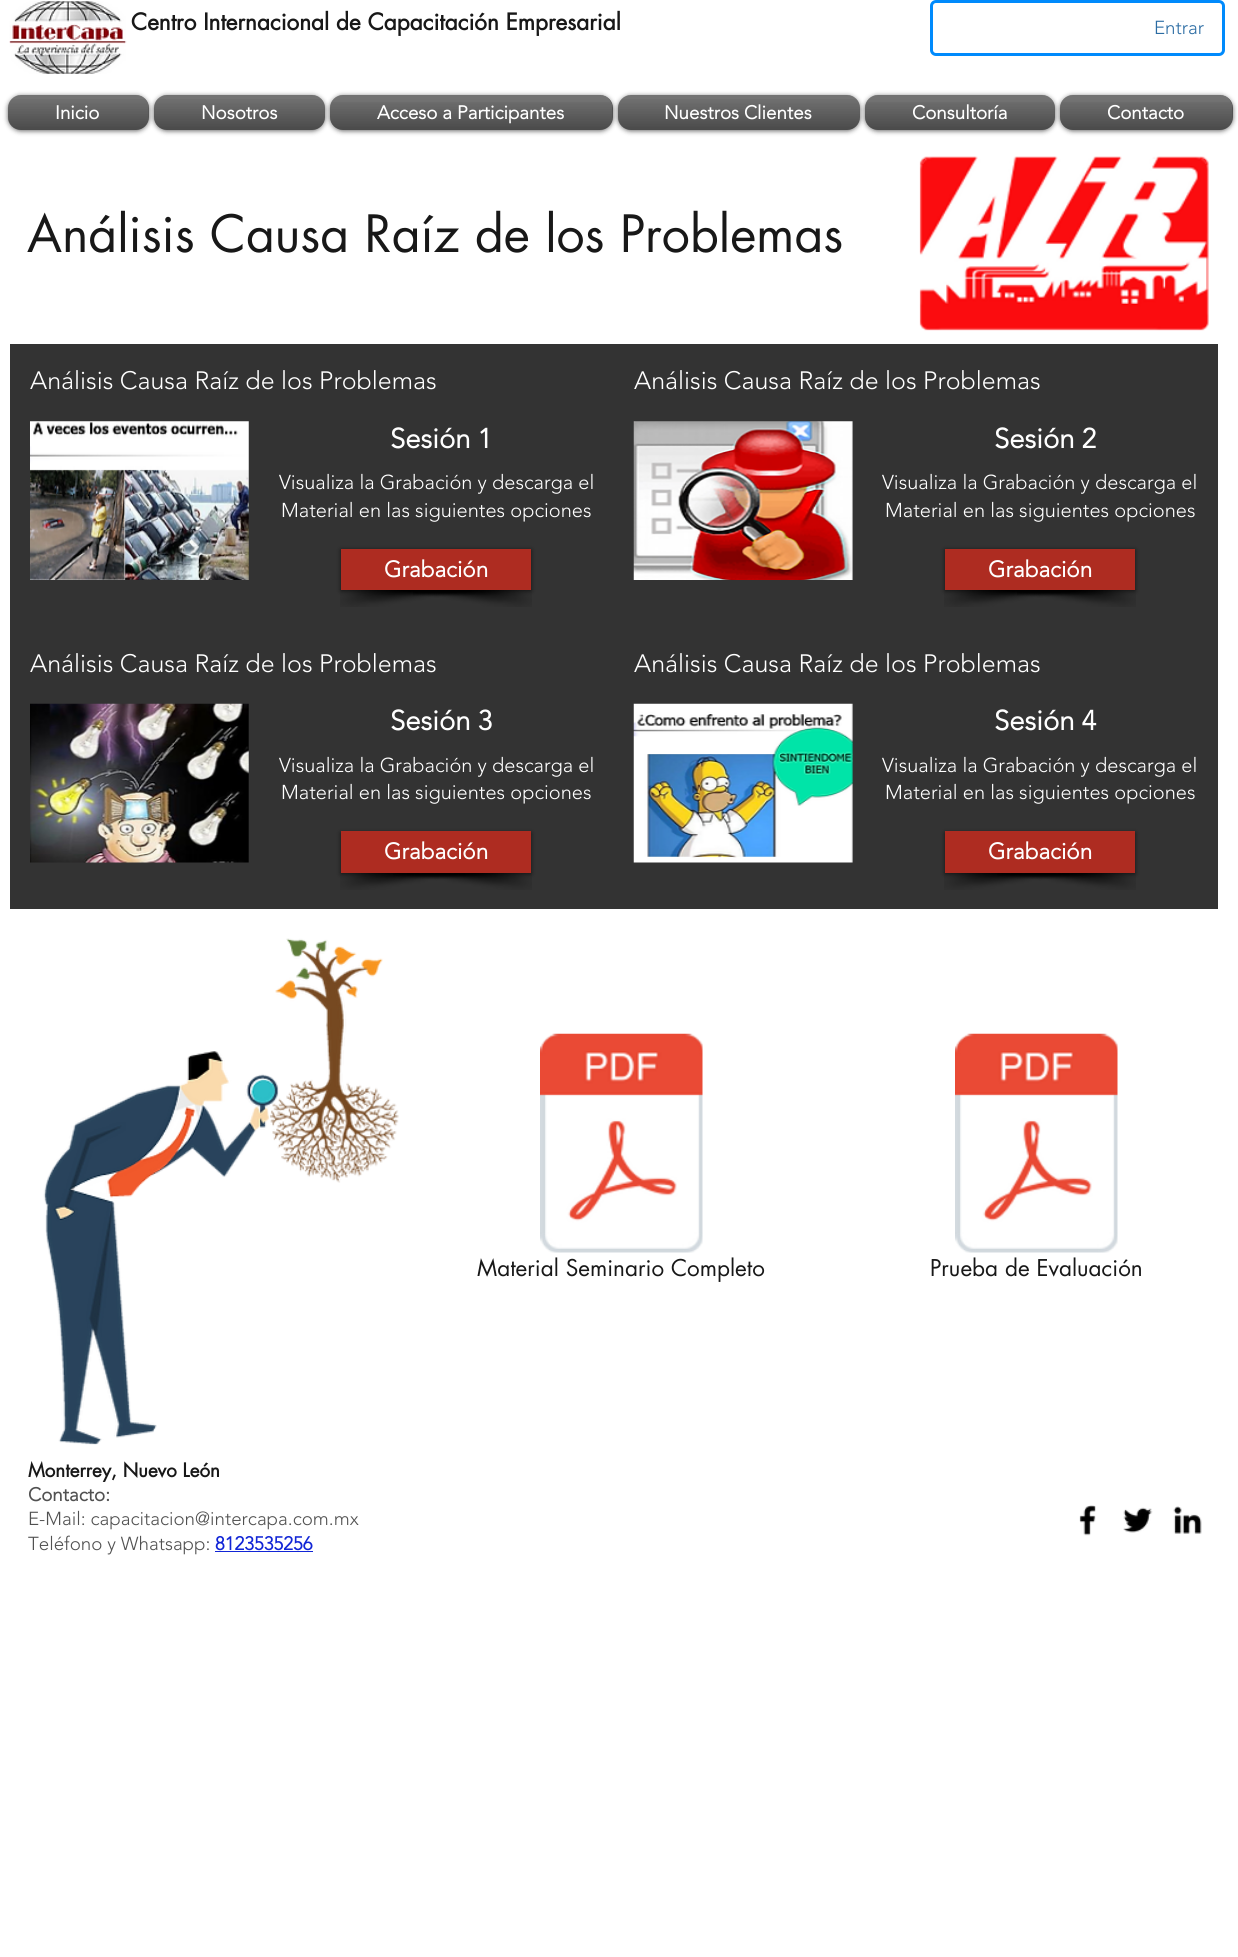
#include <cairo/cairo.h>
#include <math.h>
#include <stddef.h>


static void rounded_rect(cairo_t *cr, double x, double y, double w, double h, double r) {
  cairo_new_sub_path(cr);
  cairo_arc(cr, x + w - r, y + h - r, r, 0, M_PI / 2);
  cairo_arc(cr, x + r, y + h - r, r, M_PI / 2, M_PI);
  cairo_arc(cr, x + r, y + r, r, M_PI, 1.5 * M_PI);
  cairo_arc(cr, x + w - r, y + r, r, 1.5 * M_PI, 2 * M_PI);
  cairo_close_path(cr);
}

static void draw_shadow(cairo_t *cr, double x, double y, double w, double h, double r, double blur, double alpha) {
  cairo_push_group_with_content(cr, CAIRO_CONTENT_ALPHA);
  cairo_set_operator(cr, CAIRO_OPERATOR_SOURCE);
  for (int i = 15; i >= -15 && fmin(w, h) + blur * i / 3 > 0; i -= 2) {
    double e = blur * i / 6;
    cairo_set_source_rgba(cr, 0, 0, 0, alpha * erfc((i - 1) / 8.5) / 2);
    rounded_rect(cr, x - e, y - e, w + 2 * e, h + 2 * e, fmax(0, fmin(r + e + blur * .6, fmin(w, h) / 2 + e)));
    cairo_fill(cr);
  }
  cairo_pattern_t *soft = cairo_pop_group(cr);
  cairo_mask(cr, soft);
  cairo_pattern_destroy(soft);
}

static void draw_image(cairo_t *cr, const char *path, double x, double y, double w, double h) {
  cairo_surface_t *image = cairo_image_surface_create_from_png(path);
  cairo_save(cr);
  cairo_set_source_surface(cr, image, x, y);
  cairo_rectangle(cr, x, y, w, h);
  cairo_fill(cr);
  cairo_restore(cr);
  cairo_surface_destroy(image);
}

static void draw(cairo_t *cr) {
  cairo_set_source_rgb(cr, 1, 1, 1);
  cairo_paint(cr);
  draw_image(cr, "images/1.png", 9, 1, 118, 73);
  rounded_rect(cr, 931.5, 1.5, 292, 53, 4.5);
  cairo_set_source_rgb(cr, 0, 138 / 255.0, 252 / 255.0);
  cairo_set_line_width(cr, 3);
  cairo_stroke(cr);
  cairo_set_source_rgb(cr, 0, 0, 0);
  draw_shadow(cr, 8, 96, 141, 35, 13, 2.5, 0.6);
  cairo_set_source_rgb(cr, 82 / 255.0, 82 / 255.0, 82 / 255.0);
  rounded_rect(cr, 8, 95, 141, 35, 13);
  cairo_fill(cr);
  draw_image(cr, "images/2.png", 8, 95, 141, 35);
  draw_image(cr, "images/3.png", 8, 99, 141, 31);
  cairo_set_source_rgb(cr, 0, 0, 0);
  draw_shadow(cr, 154, 96, 171, 35, 13, 2.5, 0.6);
  cairo_set_source_rgb(cr, 82 / 255.0, 82 / 255.0, 82 / 255.0);
  rounded_rect(cr, 154, 95, 171, 35, 13);
  cairo_fill(cr);
  draw_image(cr, "images/4.png", 154, 95, 171, 35);
  draw_image(cr, "images/5.png", 154, 99, 171, 31);
  cairo_set_source_rgb(cr, 0, 0, 0);
  draw_shadow(cr, 330, 96, 283, 35, 13, 2.5, 0.6);
  cairo_set_source_rgb(cr, 82 / 255.0, 82 / 255.0, 82 / 255.0);
  rounded_rect(cr, 330, 95, 283, 35, 13);
  cairo_fill(cr);
  draw_image(cr, "images/6.png", 330, 95, 282, 35);
  draw_image(cr, "images/7.png", 330, 102, 282, 28);
  cairo_set_source_rgb(cr, 0, 0, 0);
  draw_shadow(cr, 618, 96, 242, 35, 13, 2.5, 0.6);
  cairo_set_source_rgb(cr, 82 / 255.0, 82 / 255.0, 82 / 255.0);
  rounded_rect(cr, 618, 95, 242, 35, 13);
  cairo_fill(cr);
  draw_image(cr, "images/8.png", 618, 95, 242, 35);
  draw_image(cr, "images/9.png", 618, 99, 242, 31);
  cairo_set_source_rgb(cr, 0, 0, 0);
  draw_shadow(cr, 865, 96, 190, 35, 13, 2.5, 0.6);
  cairo_set_source_rgb(cr, 82 / 255.0, 82 / 255.0, 82 / 255.0);
  rounded_rect(cr, 865, 95, 190, 35, 13);
  cairo_fill(cr);
  draw_image(cr, "images/10.png", 865, 95, 190, 35);
  draw_image(cr, "images/11.png", 865, 102, 190, 28);
  cairo_set_source_rgb(cr, 0, 0, 0);
  draw_shadow(cr, 1060, 96, 173, 35, 13, 2.5, 0.6);
  cairo_set_source_rgb(cr, 82 / 255.0, 82 / 255.0, 82 / 255.0);
  rounded_rect(cr, 1060, 95, 173, 35, 13);
  cairo_fill(cr);
  draw_image(cr, "images/12.png", 1060, 95, 172, 35);
  draw_image(cr, "images/13.png", 1060, 102, 172, 28);
  draw_image(cr, "images/14.png", 919, 156, 290, 175);
  cairo_set_source_rgb(cr, 51 / 255.0, 51 / 255.0, 51 / 255.0);
  cairo_rectangle(cr, 10, 344, 604, 565);
  cairo_fill(cr);
  draw_image(cr, "images/15.png", 30, 421, 219, 159);
  draw_image(cr, "images/16.png", 340, 590, 159, 17);
  draw_image(cr, "images/17.png", 413, 590, 119, 17);
  cairo_set_source_rgb(cr, 0, 0, 0);
  draw_shadow(cr, 341, 550, 190, 41, 0, 2.5, 0.6);
  cairo_set_source_rgb(cr, 174 / 255.0, 44 / 255.0, 33 / 255.0);
  cairo_rectangle(cr, 341, 549, 190, 41);
  cairo_fill(cr);
  draw_image(cr, "images/18.png", 30, 703, 219, 160);
  draw_image(cr, "images/19.png", 340, 873, 158, 17);
  draw_image(cr, "images/20.png", 393, 873, 139, 17);
  cairo_set_source_rgb(cr, 0, 0, 0);
  draw_shadow(cr, 341, 833, 190, 41, 0, 2.5, 0.6);
  cairo_set_source_rgb(cr, 174 / 255.0, 44 / 255.0, 33 / 255.0);
  cairo_rectangle(cr, 341, 831, 190, 42);
  cairo_fill(cr);
  cairo_set_source_rgb(cr, 51 / 255.0, 51 / 255.0, 51 / 255.0);
  cairo_rectangle(cr, 614, 344, 604, 565);
  cairo_fill(cr);
  draw_image(cr, "images/21.png", 633, 421, 220, 159);
  draw_image(cr, "images/22.png", 944, 590, 159, 17);
  draw_image(cr, "images/23.png", 1017, 590, 119, 17);
  cairo_set_source_rgb(cr, 0, 0, 0);
  draw_shadow(cr, 945, 550, 190, 41, 0, 2.5, 0.6);
  cairo_set_source_rgb(cr, 174 / 255.0, 44 / 255.0, 33 / 255.0);
  cairo_rectangle(cr, 945, 549, 190, 41);
  cairo_fill(cr);
  draw_image(cr, "images/24.png", 633, 703, 220, 160);
  draw_image(cr, "images/25.png", 944, 873, 158, 17);
  draw_image(cr, "images/26.png", 997, 873, 139, 17);
  cairo_set_source_rgb(cr, 0, 0, 0);
  draw_shadow(cr, 945, 833, 190, 41, 0, 2.5, 0.6);
  cairo_set_source_rgb(cr, 174 / 255.0, 44 / 255.0, 33 / 255.0);
  cairo_rectangle(cr, 945, 831, 190, 42);
  cairo_fill(cr);
  draw_image(cr, "images/27.png", 43, 938, 356, 507);
  draw_image(cr, "images/28.png", 540, 1033, 163, 220);
  draw_image(cr, "images/29.png", 955, 1033, 163, 220);
  cairo_set_source_rgb(cr, 17 / 255.0, 37 / 255.0, 214 / 255.0);
  cairo_rectangle(cr, 215, 1551, 98, 1);
  cairo_fill(cr);
  draw_image(cr, "images/30.png", 1079, 1505, 17, 31);
  draw_image(cr, "images/31.png", 1123, 1507, 30, 26);
  draw_image(cr, "images/32.png", 1173, 1506, 29, 28);
  cairo_select_font_face(cr, "futura", CAIRO_FONT_SLANT_NORMAL, CAIRO_FONT_WEIGHT_BOLD);
  cairo_set_font_size(cr, 22.5);
  cairo_set_source_rgb(cr, 24 / 255.0, 24 / 255.0, 24 / 255.0);
  cairo_move_to(cr, 131, 30);
  cairo_show_text(cr, "Centro Internacional de Capacitación Empresarial");
  cairo_select_font_face(cr, "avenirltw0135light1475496 Light", CAIRO_FONT_SLANT_NORMAL, CAIRO_FONT_WEIGHT_NORMAL);
  cairo_set_font_size(cr, 18.75);
  cairo_set_source_rgb(cr, 43 / 255.0, 108 / 255.0, 163 / 255.0);
  cairo_move_to(cr, 1154, 34);
  cairo_show_text(cr, "Entrar");
  cairo_select_font_face(cr, "avenirltw0135light1475496", CAIRO_FONT_SLANT_NORMAL, CAIRO_FONT_WEIGHT_BOLD);
  cairo_set_source_rgb(cr, 1, 1, 1);
  cairo_move_to(cr, 55, 119);
  cairo_show_text(cr, "Inicio");
  cairo_move_to(cr, 201, 119);
  cairo_show_text(cr, "Nosotros");
  cairo_move_to(cr, 377, 119);
  cairo_show_text(cr, "Acceso a Participantes");
  cairo_move_to(cr, 664, 119);
  cairo_show_text(cr, "Nuestros Clientes");
  cairo_move_to(cr, 912, 119);
  cairo_show_text(cr, "Consultoría");
  cairo_move_to(cr, 1107, 119);
  cairo_show_text(cr, "Contacto");
  cairo_select_font_face(cr, "futura", CAIRO_FONT_SLANT_NORMAL, CAIRO_FONT_WEIGHT_NORMAL);
  cairo_set_font_size(cr, 50);
  cairo_set_source_rgb(cr, 24 / 255.0, 24 / 255.0, 24 / 255.0);
  cairo_move_to(cr, 27, 252);
  cairo_show_text(cr, "Análisis Causa Raíz de los Problemas");
  cairo_select_font_face(cr, "avenirltw0135light1475496 Light", CAIRO_FONT_SLANT_NORMAL, CAIRO_FONT_WEIGHT_NORMAL);
  cairo_set_font_size(cr, 25);
  cairo_set_source_rgb(cr, 1, 1, 1);
  cairo_move_to(cr, 30, 389);
  cairo_show_text(cr, "Análisis Causa Raíz de los Problemas");
  cairo_select_font_face(cr, "avenirltw0135light1475496", CAIRO_FONT_SLANT_NORMAL, CAIRO_FONT_WEIGHT_BOLD);
  cairo_set_font_size(cr, 27.5);
  cairo_move_to(cr, 390, 448);
  cairo_show_text(cr, "Sesión 1");
  cairo_select_font_face(cr, "avenirltw0135light1475496 Light", CAIRO_FONT_SLANT_NORMAL, CAIRO_FONT_WEIGHT_NORMAL);
  cairo_set_font_size(cr, 20);
  cairo_move_to(cr, 279, 489);
  cairo_show_text(cr, "Visualiza la Grabación y descarga el");
  cairo_move_to(cr, 281, 517);
  cairo_show_text(cr, "Material en las siguientes opciones");
  cairo_select_font_face(cr, "avenirltw0135light1475496", CAIRO_FONT_SLANT_NORMAL, CAIRO_FONT_WEIGHT_BOLD);
  cairo_set_font_size(cr, 22.5);
  cairo_move_to(cr, 384, 577);
  cairo_show_text(cr, "Grabación");
  cairo_select_font_face(cr, "avenirltw0135light1475496 Light", CAIRO_FONT_SLANT_NORMAL, CAIRO_FONT_WEIGHT_NORMAL);
  cairo_set_font_size(cr, 25);
  cairo_move_to(cr, 30, 672);
  cairo_show_text(cr, "Análisis Causa Raíz de los Problemas");
  cairo_select_font_face(cr, "avenirltw0135light1475496", CAIRO_FONT_SLANT_NORMAL, CAIRO_FONT_WEIGHT_BOLD);
  cairo_set_font_size(cr, 27.5);
  cairo_move_to(cr, 390, 730);
  cairo_show_text(cr, "Sesión 3");
  cairo_select_font_face(cr, "avenirltw0135light1475496 Light", CAIRO_FONT_SLANT_NORMAL, CAIRO_FONT_WEIGHT_NORMAL);
  cairo_set_font_size(cr, 20);
  cairo_move_to(cr, 279, 772);
  cairo_show_text(cr, "Visualiza la Grabación y descarga el");
  cairo_move_to(cr, 281, 799);
  cairo_show_text(cr, "Material en las siguientes opciones");
  cairo_select_font_face(cr, "avenirltw0135light1475496", CAIRO_FONT_SLANT_NORMAL, CAIRO_FONT_WEIGHT_BOLD);
  cairo_set_font_size(cr, 22.5);
  cairo_move_to(cr, 384, 859);
  cairo_show_text(cr, "Grabación");
  cairo_select_font_face(cr, "avenirltw0135light1475496 Light", CAIRO_FONT_SLANT_NORMAL, CAIRO_FONT_WEIGHT_NORMAL);
  cairo_set_font_size(cr, 25);
  cairo_move_to(cr, 634, 389);
  cairo_show_text(cr, "Análisis Causa Raíz de los Problemas");
  cairo_select_font_face(cr, "avenirltw0135light1475496", CAIRO_FONT_SLANT_NORMAL, CAIRO_FONT_WEIGHT_BOLD);
  cairo_set_font_size(cr, 27.5);
  cairo_move_to(cr, 994, 448);
  cairo_show_text(cr, "Sesión 2");
  cairo_select_font_face(cr, "avenirltw0135light1475496 Light", CAIRO_FONT_SLANT_NORMAL, CAIRO_FONT_WEIGHT_NORMAL);
  cairo_set_font_size(cr, 20);
  cairo_move_to(cr, 882, 489);
  cairo_show_text(cr, "Visualiza la Grabación y descarga el");
  cairo_move_to(cr, 885, 517);
  cairo_show_text(cr, "Material en las siguientes opciones");
  cairo_select_font_face(cr, "avenirltw0135light1475496", CAIRO_FONT_SLANT_NORMAL, CAIRO_FONT_WEIGHT_BOLD);
  cairo_set_font_size(cr, 22.5);
  cairo_move_to(cr, 988, 577);
  cairo_show_text(cr, "Grabación");
  cairo_select_font_face(cr, "avenirltw0135light1475496 Light", CAIRO_FONT_SLANT_NORMAL, CAIRO_FONT_WEIGHT_NORMAL);
  cairo_set_font_size(cr, 25);
  cairo_move_to(cr, 634, 672);
  cairo_show_text(cr, "Análisis Causa Raíz de los Problemas");
  cairo_select_font_face(cr, "avenirltw0135light1475496", CAIRO_FONT_SLANT_NORMAL, CAIRO_FONT_WEIGHT_BOLD);
  cairo_set_font_size(cr, 27.5);
  cairo_move_to(cr, 994, 730);
  cairo_show_text(cr, "Sesión 4");
  cairo_select_font_face(cr, "avenirltw0135light1475496 Light", CAIRO_FONT_SLANT_NORMAL, CAIRO_FONT_WEIGHT_NORMAL);
  cairo_set_font_size(cr, 20);
  cairo_move_to(cr, 882, 772);
  cairo_show_text(cr, "Visualiza la Grabación y descarga el");
  cairo_move_to(cr, 885, 799);
  cairo_show_text(cr, "Material en las siguientes opciones");
  cairo_select_font_face(cr, "avenirltw0135light1475496", CAIRO_FONT_SLANT_NORMAL, CAIRO_FONT_WEIGHT_BOLD);
  cairo_set_font_size(cr, 22.5);
  cairo_move_to(cr, 988, 859);
  cairo_show_text(cr, "Grabación");
  cairo_select_font_face(cr, "futura", CAIRO_FONT_SLANT_NORMAL, CAIRO_FONT_WEIGHT_NORMAL);
  cairo_set_source_rgb(cr, 24 / 255.0, 24 / 255.0, 24 / 255.0);
  cairo_move_to(cr, 477, 1276);
  cairo_show_text(cr, "Material Seminario Completo");
  cairo_move_to(cr, 930, 1276);
  cairo_show_text(cr, "Prueba de Evaluación");
  cairo_select_font_face(cr, "futura", CAIRO_FONT_SLANT_NORMAL, CAIRO_FONT_WEIGHT_BOLD);
  cairo_set_font_size(cr, 18.75);
  cairo_move_to(cr, 28, 1477);
  cairo_show_text(cr, "Monterrey, Nuevo León");
  cairo_select_font_face(cr, "avenirltw0135light1475496", CAIRO_FONT_SLANT_NORMAL, CAIRO_FONT_WEIGHT_BOLD);
  cairo_set_source_rgb(cr, 81 / 255.0, 81 / 255.0, 81 / 255.0);
  cairo_move_to(cr, 28, 1501);
  cairo_show_text(cr, "Contacto:");
  cairo_select_font_face(cr, "avenirltw0135light1475496 Light", CAIRO_FONT_SLANT_NORMAL, CAIRO_FONT_WEIGHT_NORMAL);
  cairo_move_to(cr, 28, 1525);
  cairo_show_text(cr, "E-Mail: capacitacion@intercapa.com.mx");
  cairo_move_to(cr, 28, 1550);
  cairo_show_text(cr, "Teléfono y Whatsapp:");
  cairo_select_font_face(cr, "avenirltw0135light1475496", CAIRO_FONT_SLANT_NORMAL, CAIRO_FONT_WEIGHT_BOLD);
  cairo_set_source_rgb(cr, 17 / 255.0, 37 / 255.0, 214 / 255.0);
  cairo_move_to(cr, 215, 1550);
  cairo_show_text(cr, "8123535256");
}

int main(void) {
  cairo_surface_t *surface = cairo_image_surface_create(CAIRO_FORMAT_RGB24, 1238, 1957);
  cairo_t *cr = cairo_create(surface);
  cairo_font_options_t *options = cairo_font_options_create();
  cairo_font_options_set_hint_metrics(options, CAIRO_HINT_METRICS_OFF);
  cairo_font_options_set_hint_style(options, CAIRO_HINT_STYLE_NONE);
  cairo_set_font_options(cr, options);
  cairo_set_miter_limit(cr, 4);
  draw(cr);
  cairo_surface_write_to_png(surface, "out.png");
  cairo_font_options_destroy(options);
  cairo_destroy(cr);
  cairo_surface_destroy(surface);
  return 0;
}
